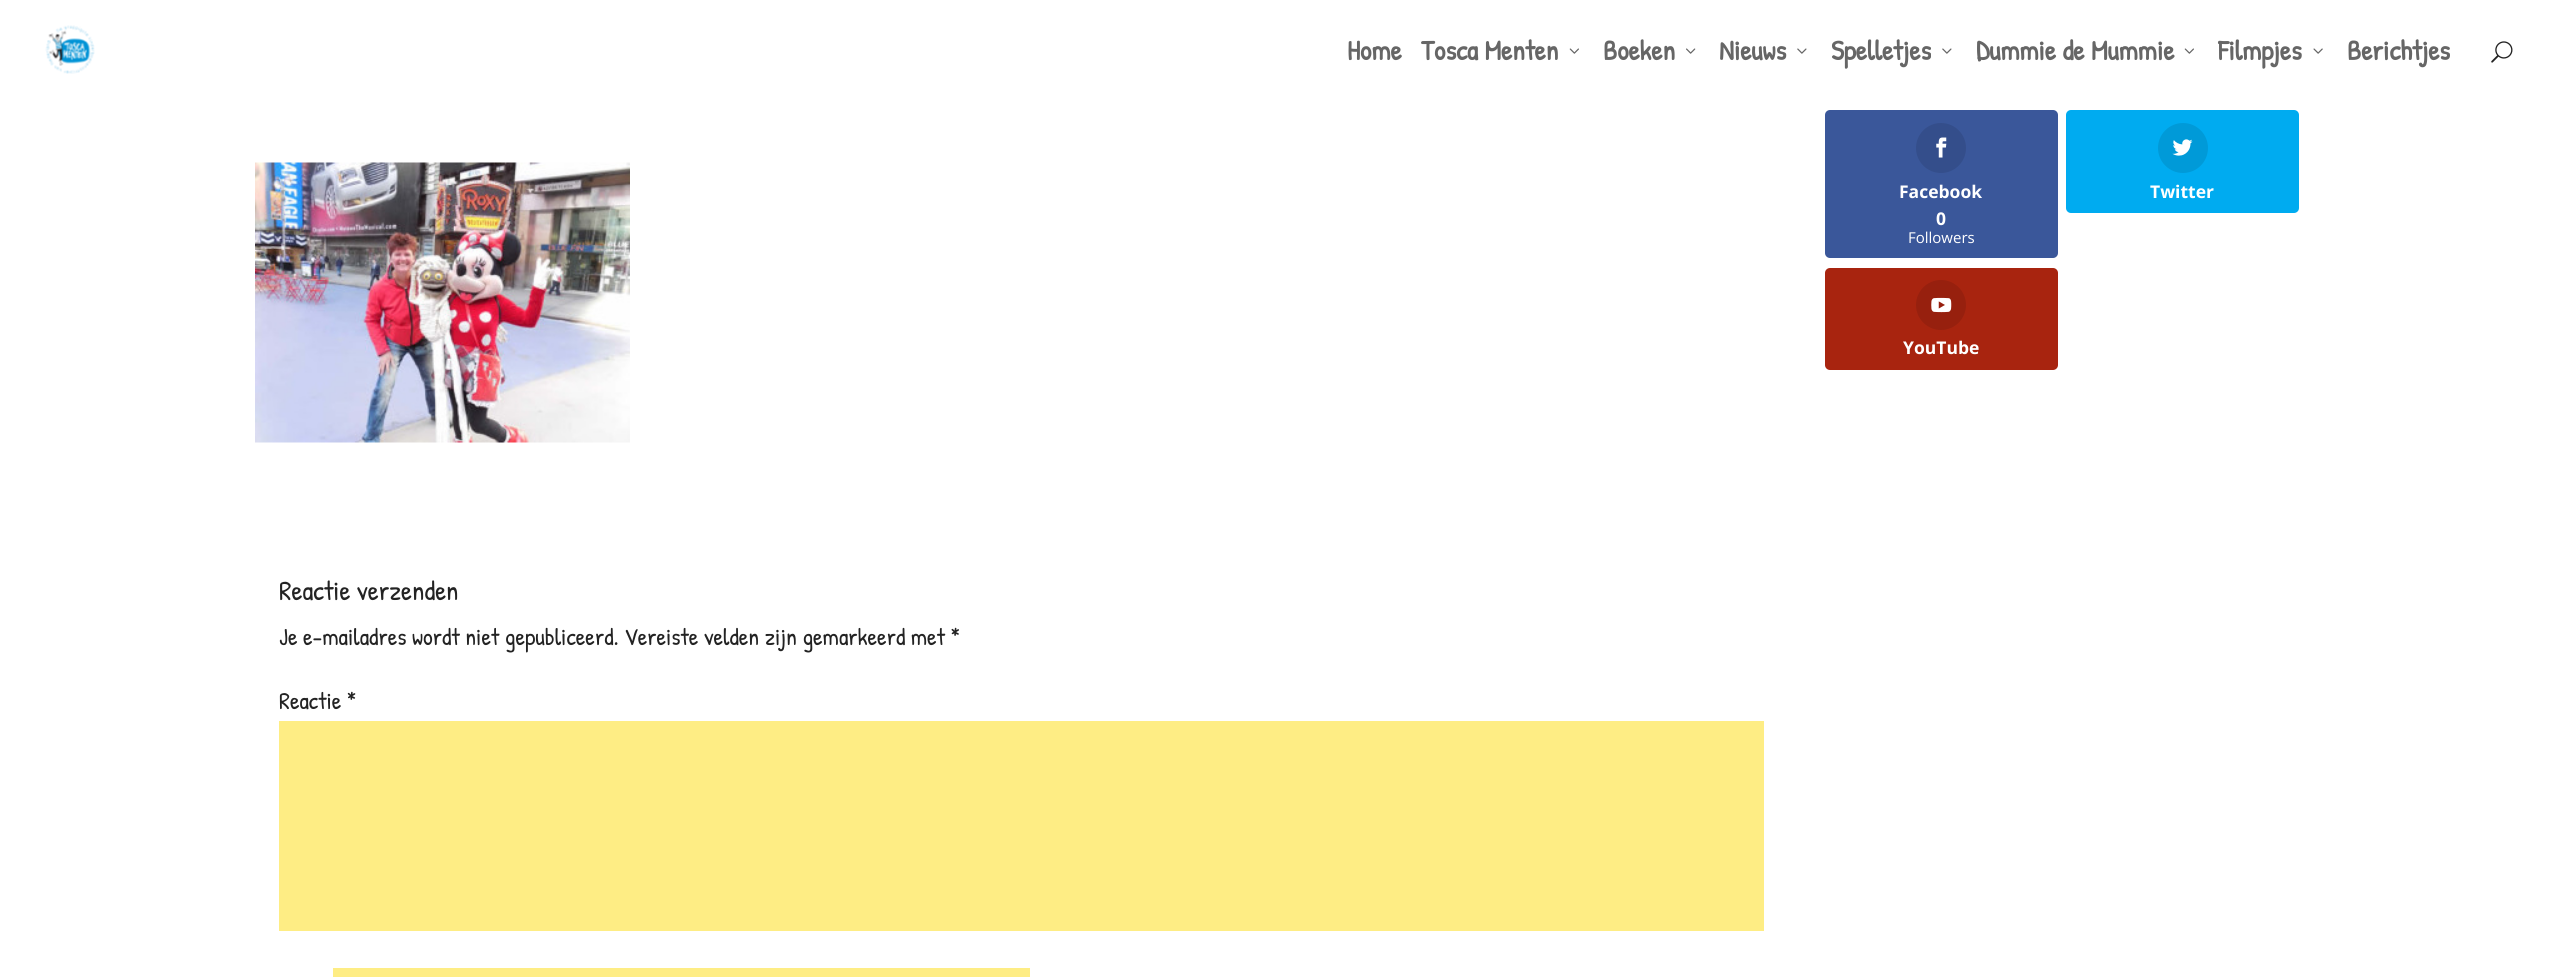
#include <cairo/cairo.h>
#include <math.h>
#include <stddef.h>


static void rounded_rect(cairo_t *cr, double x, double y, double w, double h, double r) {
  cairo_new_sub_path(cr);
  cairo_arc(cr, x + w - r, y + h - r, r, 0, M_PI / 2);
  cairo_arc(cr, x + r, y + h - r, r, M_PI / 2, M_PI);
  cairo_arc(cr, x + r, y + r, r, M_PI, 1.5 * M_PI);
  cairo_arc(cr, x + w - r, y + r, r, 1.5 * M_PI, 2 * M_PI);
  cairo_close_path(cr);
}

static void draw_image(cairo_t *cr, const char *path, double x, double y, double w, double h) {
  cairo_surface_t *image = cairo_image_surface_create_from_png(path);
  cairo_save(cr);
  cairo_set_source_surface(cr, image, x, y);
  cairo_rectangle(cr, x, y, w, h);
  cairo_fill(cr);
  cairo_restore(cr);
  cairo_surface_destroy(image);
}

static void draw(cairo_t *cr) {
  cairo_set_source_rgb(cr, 1, 1, 1);
  cairo_paint(cr);
  draw_image(cr, "images/1.png", 45, 25, 50, 49);
  draw_image(cr, "images/2.png", 1569, 48, 10, 6);
  draw_image(cr, "images/3.png", 1686, 48, 10, 6);
  draw_image(cr, "images/4.png", 1797, 48, 10, 6);
  draw_image(cr, "images/4.png", 1942, 48, 10, 6);
  draw_image(cr, "images/2.png", 2184, 48, 10, 6);
  draw_image(cr, "images/5.png", 2313, 48, 10, 6);
  draw_image(cr, "images/6.png", 2491, 41, 22, 22);
  cairo_set_source_rgb(cr, 58 / 255.0, 87 / 255.0, 154 / 255.0);
  rounded_rect(cr, 1825, 110, 233, 148, 5);
  cairo_fill(cr);
  cairo_set_source_rgb(cr, 52 / 255.0, 78 / 255.0, 139 / 255.0);
  cairo_arc(cr, 1941, 148, 25, 0, 2 * M_PI);
  cairo_fill(cr);
  draw_image(cr, "images/7.png", 1936, 137, 11, 21);
  cairo_set_source_rgb(cr, 0, 171 / 255.0, 240 / 255.0);
  rounded_rect(cr, 2066, 110, 233, 103, 5);
  cairo_fill(cr);
  cairo_set_source_rgb(cr, 0, 154 / 255.0, 216 / 255.0);
  cairo_arc(cr, 2183, 148, 25, 0, 2 * M_PI);
  cairo_fill(cr);
  draw_image(cr, "images/8.png", 2172, 139, 21, 17);
  cairo_set_source_rgb(cr, 168 / 255.0, 36 / 255.0, 15 / 255.0);
  rounded_rect(cr, 1825, 268, 233, 102, 5);
  cairo_fill(cr);
  cairo_set_source_rgb(cr, 151 / 255.0, 32 / 255.0, 14 / 255.0);
  cairo_arc(cr, 1941, 305, 25, 0, 2 * M_PI);
  cairo_fill(cr);
  draw_image(cr, "images/9.png", 1931, 297, 21, 16);
  draw_image(cr, "images/10.png", 255, 162, 375, 281);
  cairo_set_source_rgb(cr, 254 / 255.0, 237 / 255.0, 132 / 255.0);
  cairo_rectangle(cr, 279, 721, 1485, 210);
  cairo_fill(cr);
  cairo_rectangle(cr, 333, 968, 697, 9);
  cairo_fill(cr);
  cairo_select_font_face(cr, "Patrick Hand", CAIRO_FONT_SLANT_NORMAL, CAIRO_FONT_WEIGHT_BOLD);
  cairo_set_font_size(cr, 28);
  cairo_set_source_rgb(cr, 102 / 255.0, 102 / 255.0, 102 / 255.0);
  cairo_move_to(cr, 1347, 60);
  cairo_show_text(cr, "Home");
  cairo_move_to(cr, 1421, 60);
  cairo_show_text(cr, "Tosca Menten");
  cairo_move_to(cr, 1603, 60);
  cairo_show_text(cr, "Boeken");
  cairo_move_to(cr, 1719, 60);
  cairo_show_text(cr, "Nieuws");
  cairo_move_to(cr, 1831, 60);
  cairo_show_text(cr, "Spelletjes");
  cairo_move_to(cr, 1976, 60);
  cairo_show_text(cr, "Dummie de Mummie");
  cairo_move_to(cr, 2218, 60);
  cairo_show_text(cr, "Filmpjes");
  cairo_move_to(cr, 2347, 60);
  cairo_show_text(cr, "Berichtjes");
  cairo_select_font_face(cr, "Open Sans", CAIRO_FONT_SLANT_NORMAL, CAIRO_FONT_WEIGHT_BOLD);
  cairo_set_font_size(cr, 17.5);
  cairo_set_source_rgb(cr, 1, 1, 1);
  cairo_move_to(cr, 1899, 198);
  cairo_show_text(cr, "Facebook");
  cairo_move_to(cr, 1936, 225);
  cairo_show_text(cr, "0");
  cairo_select_font_face(cr, "Open Sans", CAIRO_FONT_SLANT_NORMAL, CAIRO_FONT_WEIGHT_NORMAL);
  cairo_set_font_size(cr, 15);
  cairo_move_to(cr, 1908, 243);
  cairo_show_text(cr, "Followers");
  cairo_select_font_face(cr, "Open Sans", CAIRO_FONT_SLANT_NORMAL, CAIRO_FONT_WEIGHT_BOLD);
  cairo_set_font_size(cr, 17.5);
  cairo_move_to(cr, 2150, 198);
  cairo_show_text(cr, "Twitter");
  cairo_move_to(cr, 1903, 354);
  cairo_show_text(cr, "YouTube");
  cairo_select_font_face(cr, "Patrick Hand", CAIRO_FONT_SLANT_NORMAL, CAIRO_FONT_WEIGHT_NORMAL);
  cairo_set_font_size(cr, 27.5);
  cairo_set_source_rgb(cr, 35 / 255.0, 35 / 255.0, 35 / 255.0);
  cairo_move_to(cr, 279, 600);
  cairo_show_text(cr, "Reactie verzenden");
  cairo_set_font_size(cr, 24);
  cairo_move_to(cr, 279, 645);
  cairo_show_text(cr, "Je e-mailadres wordt niet gepubliceerd. Vereiste velden zijn gemarkeerd met *");
  cairo_move_to(cr, 279, 709);
  cairo_show_text(cr, "Reactie *");
}

int main(void) {
  cairo_surface_t *surface = cairo_image_surface_create(CAIRO_FORMAT_RGB24, 2553, 977);
  cairo_t *cr = cairo_create(surface);
  cairo_font_options_t *options = cairo_font_options_create();
  cairo_font_options_set_hint_metrics(options, CAIRO_HINT_METRICS_OFF);
  cairo_font_options_set_hint_style(options, CAIRO_HINT_STYLE_NONE);
  cairo_set_font_options(cr, options);
  cairo_set_miter_limit(cr, 4);
  draw(cr);
  cairo_surface_write_to_png(surface, "out.png");
  cairo_font_options_destroy(options);
  cairo_destroy(cr);
  cairo_surface_destroy(surface);
  return 0;
}
